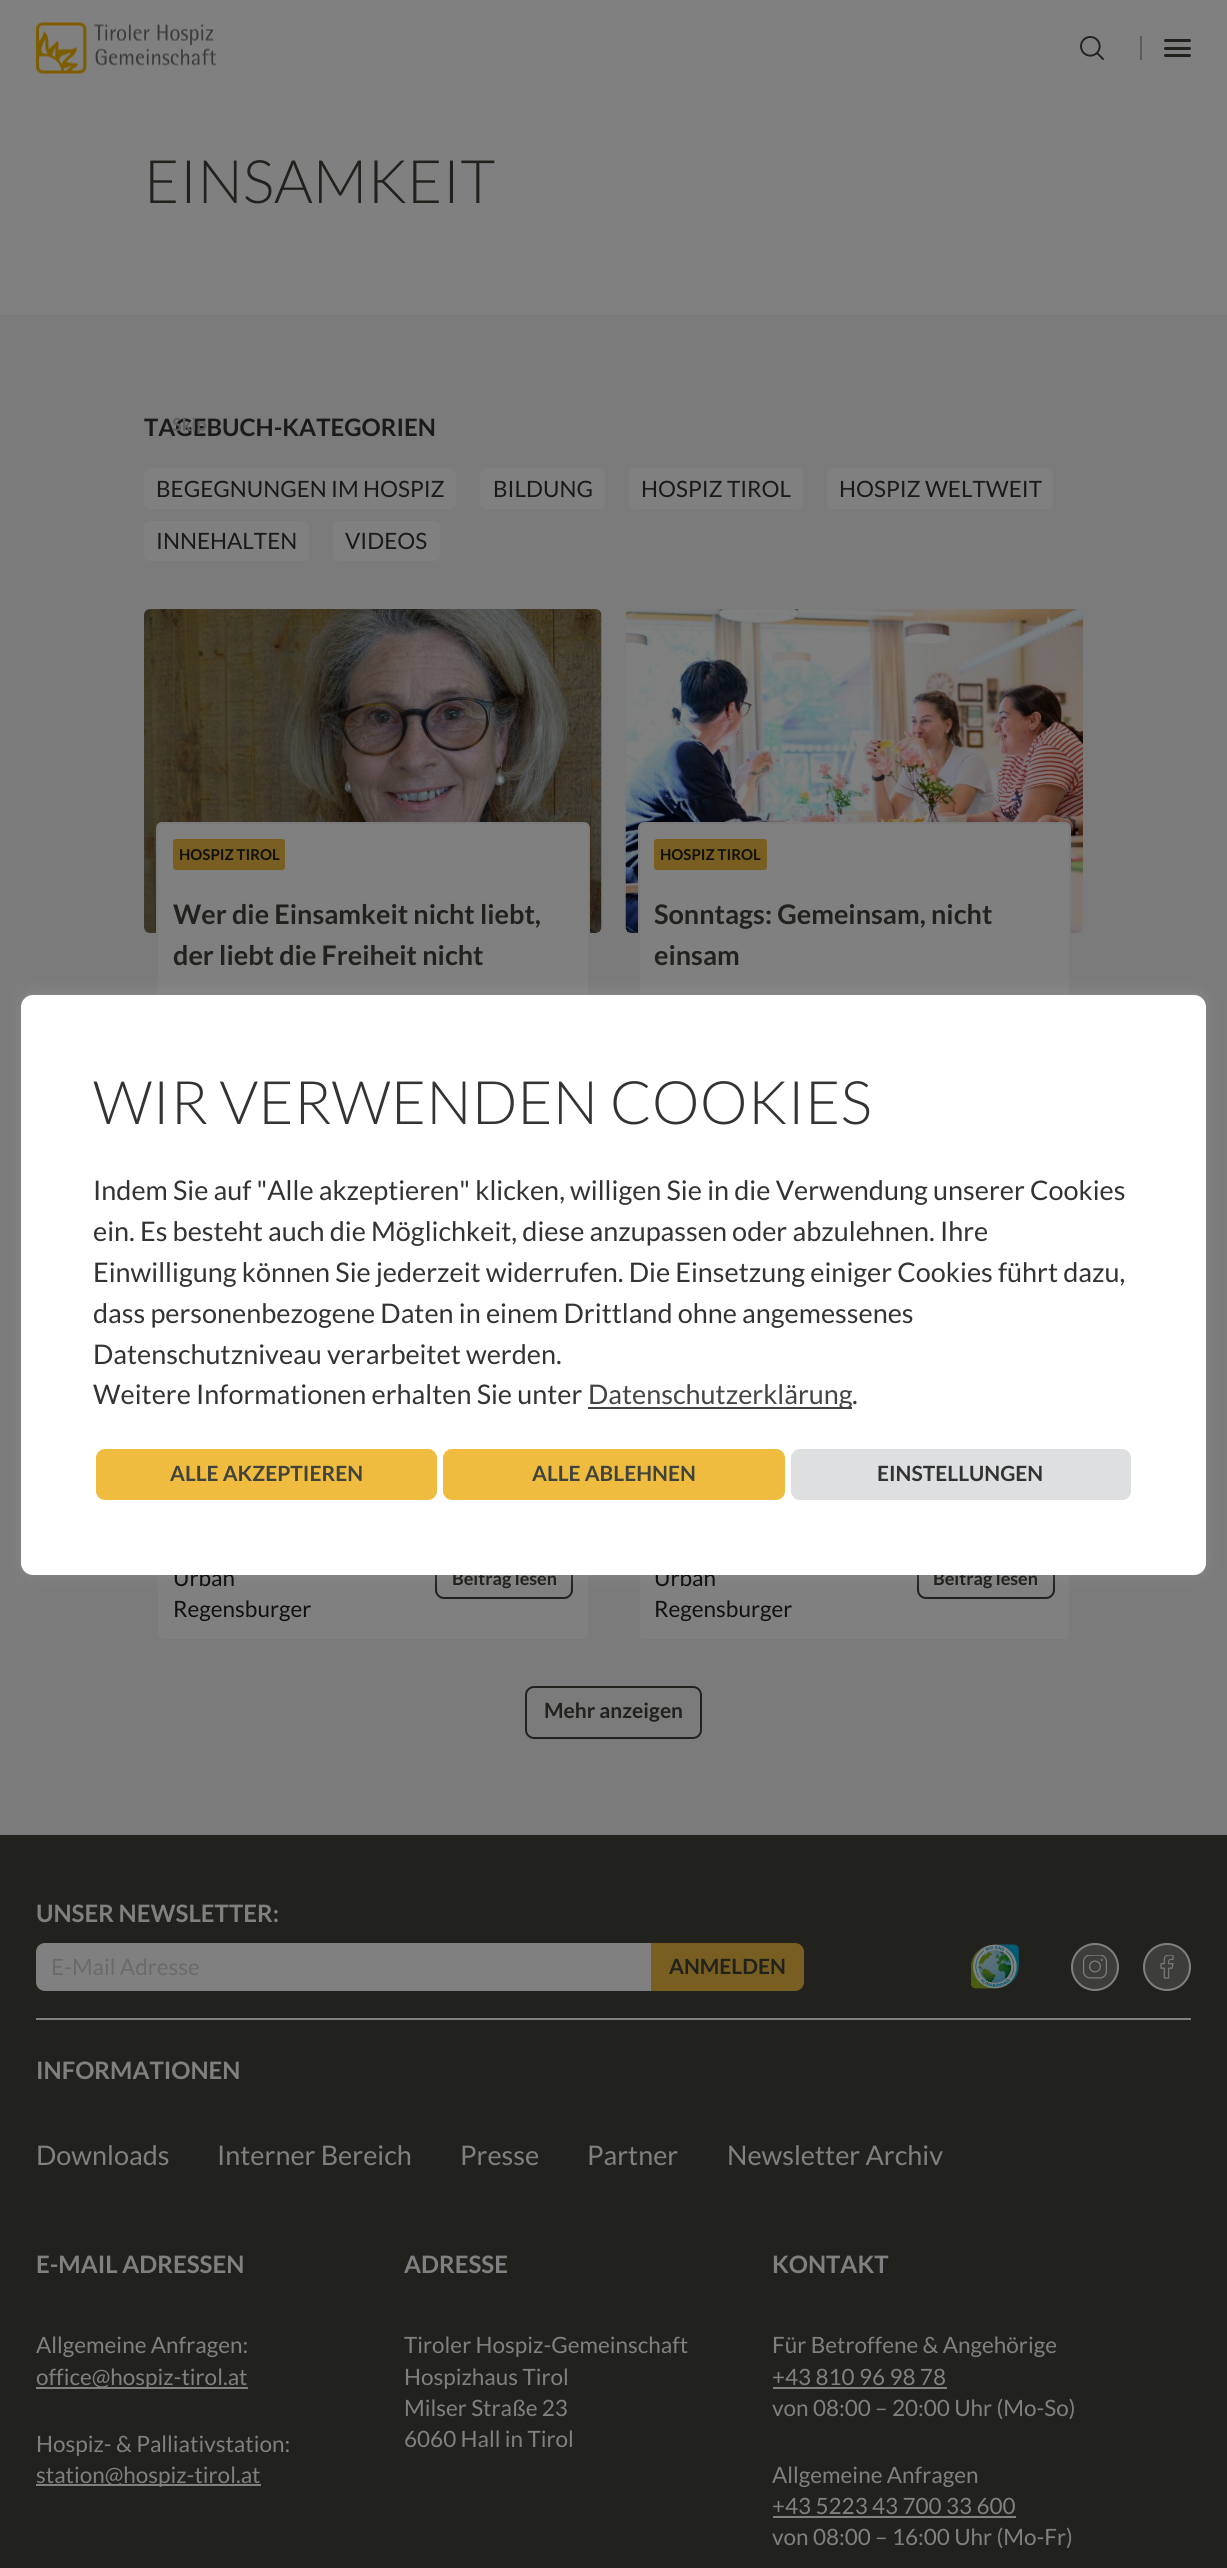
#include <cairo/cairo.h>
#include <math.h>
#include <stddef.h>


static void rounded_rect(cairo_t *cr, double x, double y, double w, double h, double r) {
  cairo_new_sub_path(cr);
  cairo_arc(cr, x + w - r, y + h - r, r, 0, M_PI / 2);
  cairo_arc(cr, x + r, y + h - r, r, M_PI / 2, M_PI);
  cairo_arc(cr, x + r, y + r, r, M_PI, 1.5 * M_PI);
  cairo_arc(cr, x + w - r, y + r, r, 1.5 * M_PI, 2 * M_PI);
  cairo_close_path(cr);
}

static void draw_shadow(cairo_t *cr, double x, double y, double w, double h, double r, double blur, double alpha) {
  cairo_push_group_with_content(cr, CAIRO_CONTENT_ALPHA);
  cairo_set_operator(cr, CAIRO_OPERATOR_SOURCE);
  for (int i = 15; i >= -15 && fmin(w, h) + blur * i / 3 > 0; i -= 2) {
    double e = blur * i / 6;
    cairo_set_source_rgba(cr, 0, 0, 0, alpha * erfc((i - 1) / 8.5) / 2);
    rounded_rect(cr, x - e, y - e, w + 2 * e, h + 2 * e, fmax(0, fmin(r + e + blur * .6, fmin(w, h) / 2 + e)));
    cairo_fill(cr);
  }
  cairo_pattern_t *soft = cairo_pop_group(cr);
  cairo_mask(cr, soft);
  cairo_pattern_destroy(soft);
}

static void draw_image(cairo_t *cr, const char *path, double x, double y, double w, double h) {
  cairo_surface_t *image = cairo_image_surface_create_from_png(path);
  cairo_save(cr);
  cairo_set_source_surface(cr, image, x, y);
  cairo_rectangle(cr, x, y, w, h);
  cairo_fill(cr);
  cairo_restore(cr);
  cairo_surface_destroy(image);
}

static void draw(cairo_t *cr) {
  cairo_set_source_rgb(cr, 128 / 255.0, 128 / 255.0, 128 / 255.0);
  cairo_paint(cr);
  draw_image(cr, "images/1.png", 36, 22, 180, 52);
  draw_image(cr, "images/2.png", 1080, 36, 24, 24);
  cairo_set_source_rgb(cr, 95 / 255.0, 91 / 255.0, 90 / 255.0);
  cairo_rectangle(cr, 1140, 36, 2, 24);
  cairo_fill(cr);
  cairo_set_source_rgb(cr, 33 / 255.0, 34 / 255.0, 29 / 255.0);
  rounded_rect(cr, 1164, 39, 27, 3, 1.5);
  cairo_fill(cr);
  rounded_rect(cr, 1164, 47, 27, 3, 1.5);
  cairo_fill(cr);
  rounded_rect(cr, 1164, 54, 27, 3, 1.5);
  cairo_fill(cr);
  cairo_set_source_rgb(cr, 123 / 255.0, 123 / 255.0, 123 / 255.0);
  cairo_rectangle(cr, 0, 315, 1227, 1520);
  cairo_fill(cr);
  cairo_set_source_rgb(cr, 128 / 255.0, 128 / 255.0, 128 / 255.0);
  rounded_rect(cr, 144, 468, 312, 41, 6);
  cairo_fill(cr);
  rounded_rect(cr, 480, 468, 125, 41, 6);
  cairo_fill(cr);
  rounded_rect(cr, 629, 468, 174, 41, 6);
  cairo_fill(cr);
  rounded_rect(cr, 827, 468, 226, 41, 6);
  cairo_fill(cr);
  rounded_rect(cr, 144, 521, 165, 40, 6);
  cairo_fill(cr);
  rounded_rect(cr, 333, 521, 107, 40, 6);
  cairo_fill(cr);
  draw_image(cr, "images/3.png", 144, 609, 458, 324);
  rounded_rect(cr, 157, 823, 432, 277, 5);
  cairo_fill_preserve(cr);
  cairo_set_source_rgb(cr, 123 / 255.0, 123 / 255.0, 123 / 255.0);
  cairo_stroke(cr);
  cairo_set_source_rgb(cr, 120 / 255.0, 94 / 255.0, 32 / 255.0);
  rounded_rect(cr, 173, 839, 112, 31, 3);
  cairo_fill(cr);
  draw_image(cr, "images/4.png", 625, 609, 458, 324);
  cairo_set_source_rgb(cr, 128 / 255.0, 128 / 255.0, 128 / 255.0);
  rounded_rect(cr, 639, 823, 431, 277, 5);
  cairo_fill_preserve(cr);
  cairo_set_source_rgb(cr, 123 / 255.0, 123 / 255.0, 123 / 255.0);
  cairo_stroke(cr);
  cairo_set_source_rgb(cr, 120 / 255.0, 94 / 255.0, 32 / 255.0);
  rounded_rect(cr, 654, 839, 113, 31, 3);
  cairo_fill(cr);
  cairo_set_source_rgb(cr, 128 / 255.0, 128 / 255.0, 128 / 255.0);
  rounded_rect(cr, 157, 1354, 432, 286, 5);
  cairo_fill_preserve(cr);
  cairo_set_source_rgb(cr, 123 / 255.0, 123 / 255.0, 123 / 255.0);
  cairo_stroke(cr);
  rounded_rect(cr, 436, 1555, 136, 43, 8);
  cairo_set_source_rgb(cr, 33 / 255.0, 34 / 255.0, 29 / 255.0);
  cairo_stroke(cr);
  cairo_set_source_rgb(cr, 128 / 255.0, 128 / 255.0, 128 / 255.0);
  rounded_rect(cr, 639, 1354, 431, 286, 5);
  cairo_fill_preserve(cr);
  cairo_set_source_rgb(cr, 123 / 255.0, 123 / 255.0, 123 / 255.0);
  cairo_stroke(cr);
  rounded_rect(cr, 918, 1555, 136, 43, 8);
  cairo_set_source_rgb(cr, 33 / 255.0, 34 / 255.0, 29 / 255.0);
  cairo_stroke(cr);
  rounded_rect(cr, 526, 1687, 175, 51, 8);
  cairo_stroke(cr);
  cairo_set_source_rgb(cr, 172 / 255.0, 171 / 255.0, 171 / 255.0);
  draw_shadow(cr, 21, 993, 1185, 581, 12, 7.5, 0.3);
  cairo_set_source_rgb(cr, 33 / 255.0, 34 / 255.0, 29 / 255.0);
  cairo_rectangle(cr, 0, 1835, 1227, 733);
  cairo_fill(cr);
  cairo_set_source_rgb(cr, 128 / 255.0, 128 / 255.0, 128 / 255.0);
  cairo_new_path(cr);
  cairo_move_to(cr, 45, 1943);
  cairo_line_to(cr, 651, 1943);
  cairo_line_to(cr, 651, 1991);
  cairo_line_to(cr, 45, 1991);
  cairo_curve_to(cr, 40, 1991, 36, 1987, 36, 1982);
  cairo_line_to(cr, 36, 1952);
  cairo_curve_to(cr, 36, 1947, 40, 1943, 45, 1943);
  cairo_close_path(cr);
  cairo_fill(cr);
  cairo_set_source_rgb(cr, 120 / 255.0, 94 / 255.0, 32 / 255.0);
  cairo_new_path(cr);
  cairo_move_to(cr, 651, 1943);
  cairo_line_to(cr, 795, 1943);
  cairo_curve_to(cr, 800, 1943, 804, 1947, 804, 1952);
  cairo_line_to(cr, 804, 1982);
  cairo_curve_to(cr, 804, 1987, 800, 1991, 795, 1991);
  cairo_line_to(cr, 651, 1991);
  cairo_close_path(cr);
  cairo_fill(cr);
  draw_image(cr, "images/5.png", 970, 1944, 49, 45);
  cairo_set_source_rgb(cr, 61 / 255.0, 62 / 255.0, 59 / 255.0);
  cairo_arc(cr, 1095, 1967, 23, 0, 2 * M_PI);
  cairo_fill_preserve(cr);
  cairo_set_source_rgb(cr, 128 / 255.0, 128 / 255.0, 128 / 255.0);
  cairo_stroke(cr);
  draw_image(cr, "images/6.png", 1083, 1955, 24, 24);
  cairo_set_source_rgb(cr, 61 / 255.0, 62 / 255.0, 59 / 255.0);
  cairo_arc(cr, 1167, 1967, 23, 0, 2 * M_PI);
  cairo_fill_preserve(cr);
  cairo_set_source_rgb(cr, 128 / 255.0, 128 / 255.0, 128 / 255.0);
  cairo_stroke(cr);
  draw_image(cr, "images/7.png", 1160, 1955, 14, 24);
  cairo_rectangle(cr, 36, 2018, 1155, 2);
  cairo_fill(cr);
  cairo_rectangle(cr, 36, 2387, 212, 2);
  cairo_fill(cr);
  cairo_rectangle(cr, 36, 2484, 225, 2);
  cairo_fill(cr);
  cairo_rectangle(cr, 773, 2387, 174, 2);
  cairo_fill(cr);
  cairo_rectangle(cr, 773, 2516, 243, 2);
  cairo_fill(cr);
  cairo_select_font_face(cr, "Lato Light", CAIRO_FONT_SLANT_NORMAL, CAIRO_FONT_WEIGHT_NORMAL);
  cairo_set_font_size(cr, 60);
  cairo_set_source_rgb(cr, 33 / 255.0, 34 / 255.0, 29 / 255.0);
  cairo_move_to(cr, 144, 203);
  cairo_show_text(cr, "EINSAMKEIT");
  cairo_select_font_face(cr, "Lato", CAIRO_FONT_SLANT_NORMAL, CAIRO_FONT_WEIGHT_BOLD);
  cairo_set_font_size(cr, 24);
  cairo_set_source_rgb(cr, 26 / 255.0, 26 / 255.0, 26 / 255.0);
  cairo_move_to(cr, 144, 436);
  cairo_show_text(cr, "TAGEBUCH-KATEGORIEN");
  cairo_set_font_size(cr, 18);
  cairo_set_source_rgb(cr, 96 / 255.0, 96 / 255.0, 96 / 255.0);
  cairo_move_to(cr, 172, 431);
  cairo_show_text(cr, "Skip");
  cairo_select_font_face(cr, "Lato", CAIRO_FONT_SLANT_NORMAL, CAIRO_FONT_WEIGHT_NORMAL);
  cairo_set_font_size(cr, 22.5);
  cairo_set_source_rgb(cr, 26 / 255.0, 26 / 255.0, 26 / 255.0);
  cairo_move_to(cr, 156, 497);
  cairo_show_text(cr, "BEGEGNUNGEN IM HOSPIZ");
  cairo_move_to(cr, 493, 497);
  cairo_show_text(cr, "BILDUNG");
  cairo_move_to(cr, 641, 497);
  cairo_show_text(cr, "HOSPIZ TIROL");
  cairo_move_to(cr, 839, 497);
  cairo_show_text(cr, "HOSPIZ WELTWEIT");
  cairo_move_to(cr, 156, 549);
  cairo_show_text(cr, "INNEHALTEN");
  cairo_move_to(cr, 345, 549);
  cairo_show_text(cr, "VIDEOS");
  cairo_select_font_face(cr, "Lato", CAIRO_FONT_SLANT_NORMAL, CAIRO_FONT_WEIGHT_BOLD);
  cairo_set_font_size(cr, 15);
  cairo_set_source_rgb(cr, 16 / 255.0, 16 / 255.0, 15 / 255.0);
  cairo_move_to(cr, 179, 860);
  cairo_show_text(cr, "HOSPIZ TIROL");
  cairo_set_font_size(cr, 27);
  cairo_set_source_rgb(cr, 33 / 255.0, 34 / 255.0, 29 / 255.0);
  cairo_move_to(cr, 173, 924);
  cairo_show_text(cr, "Wer die Einsamkeit nicht liebt,");
  cairo_move_to(cr, 173, 965);
  cairo_show_text(cr, "der liebt die Freiheit nicht");
  cairo_set_font_size(cr, 15);
  cairo_set_source_rgb(cr, 16 / 255.0, 16 / 255.0, 15 / 255.0);
  cairo_move_to(cr, 660, 860);
  cairo_show_text(cr, "HOSPIZ TIROL");
  cairo_set_font_size(cr, 27);
  cairo_set_source_rgb(cr, 33 / 255.0, 34 / 255.0, 29 / 255.0);
  cairo_move_to(cr, 654, 924);
  cairo_show_text(cr, "Sonntags: Gemeinsam, nicht");
  cairo_move_to(cr, 654, 965);
  cairo_show_text(cr, "einsam");
  cairo_select_font_face(cr, "Lato", CAIRO_FONT_SLANT_NORMAL, CAIRO_FONT_WEIGHT_NORMAL);
  cairo_set_font_size(cr, 22.5);
  cairo_set_source_rgb(cr, 16 / 255.0, 16 / 255.0, 15 / 255.0);
  cairo_move_to(cr, 173, 1586);
  cairo_show_text(cr, "Urban");
  cairo_move_to(cr, 173, 1617);
  cairo_show_text(cr, "Regensburger");
  cairo_select_font_face(cr, "Lato", CAIRO_FONT_SLANT_NORMAL, CAIRO_FONT_WEIGHT_BOLD);
  cairo_set_font_size(cr, 18);
  cairo_set_source_rgb(cr, 33 / 255.0, 34 / 255.0, 29 / 255.0);
  cairo_move_to(cr, 452, 1585);
  cairo_show_text(cr, "Beitrag lesen");
  cairo_select_font_face(cr, "Lato", CAIRO_FONT_SLANT_NORMAL, CAIRO_FONT_WEIGHT_NORMAL);
  cairo_set_font_size(cr, 22.5);
  cairo_set_source_rgb(cr, 16 / 255.0, 16 / 255.0, 15 / 255.0);
  cairo_move_to(cr, 654, 1586);
  cairo_show_text(cr, "Urban");
  cairo_move_to(cr, 654, 1617);
  cairo_show_text(cr, "Regensburger");
  cairo_select_font_face(cr, "Lato", CAIRO_FONT_SLANT_NORMAL, CAIRO_FONT_WEIGHT_BOLD);
  cairo_set_font_size(cr, 18);
  cairo_set_source_rgb(cr, 33 / 255.0, 34 / 255.0, 29 / 255.0);
  cairo_move_to(cr, 933, 1585);
  cairo_show_text(cr, "Beitrag lesen");
  cairo_set_font_size(cr, 21);
  cairo_move_to(cr, 544, 1718);
  cairo_show_text(cr, "Mehr anzeigen");
  cairo_set_source_rgb(cr, 1, 1, 1);
  rounded_rect(cr, 21, 995, 1185, 580, 12);
  cairo_fill(cr);
  cairo_select_font_face(cr, "Lato Light", CAIRO_FONT_SLANT_NORMAL, CAIRO_FONT_WEIGHT_NORMAL);
  cairo_set_font_size(cr, 60);
  cairo_set_source_rgb(cr, 51 / 255.0, 51 / 255.0, 51 / 255.0);
  cairo_move_to(cr, 93, 1124);
  cairo_show_text(cr, "WIR VERWENDEN COOKIES");
  cairo_select_font_face(cr, "Lato", CAIRO_FONT_SLANT_NORMAL, CAIRO_FONT_WEIGHT_NORMAL);
  cairo_set_font_size(cr, 27);
  cairo_move_to(cr, 93, 1200);
  cairo_show_text(cr, "Indem Sie auf \"Alle akzeptieren\" klicken, willigen Sie in die Verwendung unserer Cookies");
  cairo_move_to(cr, 93, 1241);
  cairo_show_text(cr, "ein. Es besteht auch die Möglichkeit, diese anzupassen oder abzulehnen. Ihre");
  cairo_move_to(cr, 93, 1282);
  cairo_show_text(cr, "Einwilligung können Sie jederzeit widerrufen. Die Einsetzung einiger Cookies führt dazu,");
  cairo_move_to(cr, 93, 1323);
  cairo_show_text(cr, "dass personenbezogene Daten in einem Drittland ohne angemessenes");
  cairo_move_to(cr, 93, 1364);
  cairo_show_text(cr, "Datenschutzniveau verarbeitet werden.");
  cairo_move_to(cr, 93, 1404);
  cairo_show_text(cr, "Weitere Informationen erhalten Sie unter");
  cairo_set_source_rgb(cr, 68 / 255.0, 68 / 255.0, 68 / 255.0);
  cairo_rectangle(cr, 588, 1407, 264, 2);
  cairo_fill(cr);
  cairo_move_to(cr, 588, 1404);
  cairo_show_text(cr, "Datenschutzerklärung");
  cairo_set_source_rgb(cr, 51 / 255.0, 51 / 255.0, 51 / 255.0);
  cairo_move_to(cr, 852, 1404);
  cairo_show_text(cr, ".");
  cairo_set_source_rgb(cr, 240 / 255.0, 188 / 255.0, 64 / 255.0);
  rounded_rect(cr, 96, 1449, 341, 51, 9);
  cairo_fill(cr);
  cairo_select_font_face(cr, "Lato", CAIRO_FONT_SLANT_NORMAL, CAIRO_FONT_WEIGHT_BOLD);
  cairo_set_font_size(cr, 21);
  cairo_set_source_rgb(cr, 65 / 255.0, 68 / 255.0, 58 / 255.0);
  cairo_move_to(cr, 170, 1481);
  cairo_show_text(cr, "ALLE AKZEPTIEREN");
  cairo_set_source_rgb(cr, 240 / 255.0, 188 / 255.0, 64 / 255.0);
  rounded_rect(cr, 443, 1449, 342, 51, 9);
  cairo_fill(cr);
  cairo_set_source_rgb(cr, 65 / 255.0, 68 / 255.0, 58 / 255.0);
  cairo_move_to(cr, 532, 1481);
  cairo_show_text(cr, "ALLE ABLEHNEN");
  cairo_set_source_rgb(cr, 222 / 255.0, 223 / 255.0, 224 / 255.0);
  rounded_rect(cr, 791, 1449, 340, 51, 9);
  cairo_fill(cr);
  cairo_set_source_rgb(cr, 51 / 255.0, 51 / 255.0, 51 / 255.0);
  cairo_move_to(cr, 877, 1481);
  cairo_show_text(cr, "EINSTELLUNGEN");
  cairo_set_font_size(cr, 24);
  cairo_set_source_rgb(cr, 128 / 255.0, 128 / 255.0, 128 / 255.0);
  cairo_move_to(cr, 36, 1922);
  cairo_show_text(cr, "UNSER NEWSLETTER:");
  cairo_select_font_face(cr, "Lato", CAIRO_FONT_SLANT_NORMAL, CAIRO_FONT_WEIGHT_NORMAL);
  cairo_set_font_size(cr, 22.5);
  cairo_set_source_rgb(cr, 108 / 255.0, 106 / 255.0, 105 / 255.0);
  cairo_move_to(cr, 51, 1975);
  cairo_show_text(cr, "E-Mail Adresse");
  cairo_select_font_face(cr, "Lato", CAIRO_FONT_SLANT_NORMAL, CAIRO_FONT_WEIGHT_BOLD);
  cairo_set_font_size(cr, 21);
  cairo_set_source_rgb(cr, 33 / 255.0, 34 / 255.0, 29 / 255.0);
  cairo_move_to(cr, 669, 1974);
  cairo_show_text(cr, "ANMELDEN");
  cairo_set_font_size(cr, 24);
  cairo_set_source_rgb(cr, 128 / 255.0, 128 / 255.0, 128 / 255.0);
  cairo_move_to(cr, 36, 2079);
  cairo_show_text(cr, "INFORMATIONEN");
  cairo_select_font_face(cr, "Lato", CAIRO_FONT_SLANT_NORMAL, CAIRO_FONT_WEIGHT_NORMAL);
  cairo_set_font_size(cr, 27);
  cairo_move_to(cr, 36, 2165);
  cairo_show_text(cr, "Downloads");
  cairo_move_to(cr, 217, 2165);
  cairo_show_text(cr, "Interner Bereich");
  cairo_move_to(cr, 460, 2165);
  cairo_show_text(cr, "Presse");
  cairo_move_to(cr, 587, 2165);
  cairo_show_text(cr, "Partner");
  cairo_move_to(cr, 727, 2165);
  cairo_show_text(cr, "Newsletter Archiv");
  cairo_select_font_face(cr, "Lato", CAIRO_FONT_SLANT_NORMAL, CAIRO_FONT_WEIGHT_BOLD);
  cairo_set_font_size(cr, 24);
  cairo_move_to(cr, 36, 2273);
  cairo_show_text(cr, "E-MAIL ADRESSEN");
  cairo_select_font_face(cr, "Lato", CAIRO_FONT_SLANT_NORMAL, CAIRO_FONT_WEIGHT_NORMAL);
  cairo_set_font_size(cr, 22.5);
  cairo_move_to(cr, 36, 2353);
  cairo_show_text(cr, "Allgemeine Anfragen:");
  cairo_move_to(cr, 36, 2385);
  cairo_show_text(cr, "office@hospiz-tirol.at");
  cairo_move_to(cr, 36, 2452);
  cairo_show_text(cr, "Hospiz- & Palliativstation:");
  cairo_move_to(cr, 36, 2483);
  cairo_show_text(cr, "station@hospiz-tirol.at");
  cairo_select_font_face(cr, "Lato", CAIRO_FONT_SLANT_NORMAL, CAIRO_FONT_WEIGHT_BOLD);
  cairo_set_font_size(cr, 24);
  cairo_move_to(cr, 404, 2273);
  cairo_show_text(cr, "ADRESSE");
  cairo_select_font_face(cr, "Lato", CAIRO_FONT_SLANT_NORMAL, CAIRO_FONT_WEIGHT_NORMAL);
  cairo_set_font_size(cr, 22.5);
  cairo_move_to(cr, 404, 2353);
  cairo_show_text(cr, "Tiroler Hospiz-Gemeinschaft");
  cairo_move_to(cr, 404, 2385);
  cairo_show_text(cr, "Hospizhaus Tirol");
  cairo_move_to(cr, 404, 2416);
  cairo_show_text(cr, "Milser Straße 23");
  cairo_move_to(cr, 404, 2447);
  cairo_show_text(cr, "6060 Hall in Tirol");
  cairo_select_font_face(cr, "Lato", CAIRO_FONT_SLANT_NORMAL, CAIRO_FONT_WEIGHT_BOLD);
  cairo_set_font_size(cr, 24);
  cairo_move_to(cr, 772, 2273);
  cairo_show_text(cr, "KONTAKT");
  cairo_select_font_face(cr, "Lato", CAIRO_FONT_SLANT_NORMAL, CAIRO_FONT_WEIGHT_NORMAL);
  cairo_set_font_size(cr, 22.5);
  cairo_move_to(cr, 772, 2353);
  cairo_show_text(cr, "Für Betroffene & Angehörige");
  cairo_move_to(cr, 772, 2385);
  cairo_show_text(cr, "+43 810 96 98 78");
  cairo_move_to(cr, 772, 2416);
  cairo_show_text(cr, "von 08:00 – 20:00 Uhr (Mo-So)");
  cairo_move_to(cr, 772, 2483);
  cairo_show_text(cr, "Allgemeine Anfragen");
  cairo_move_to(cr, 772, 2514);
  cairo_show_text(cr, "+43 5223 43 700 33 600");
  cairo_move_to(cr, 772, 2545);
  cairo_show_text(cr, "von 08:00 – 16:00 Uhr (Mo-Fr)");
}

int main(void) {
  cairo_surface_t *surface = cairo_image_surface_create(CAIRO_FORMAT_RGB24, 1227, 2568);
  cairo_t *cr = cairo_create(surface);
  cairo_font_options_t *options = cairo_font_options_create();
  cairo_font_options_set_hint_metrics(options, CAIRO_HINT_METRICS_OFF);
  cairo_font_options_set_hint_style(options, CAIRO_HINT_STYLE_NONE);
  cairo_set_font_options(cr, options);
  cairo_set_miter_limit(cr, 4);
  draw(cr);
  cairo_surface_write_to_png(surface, "out.png");
  cairo_font_options_destroy(options);
  cairo_destroy(cr);
  cairo_surface_destroy(surface);
  return 0;
}
